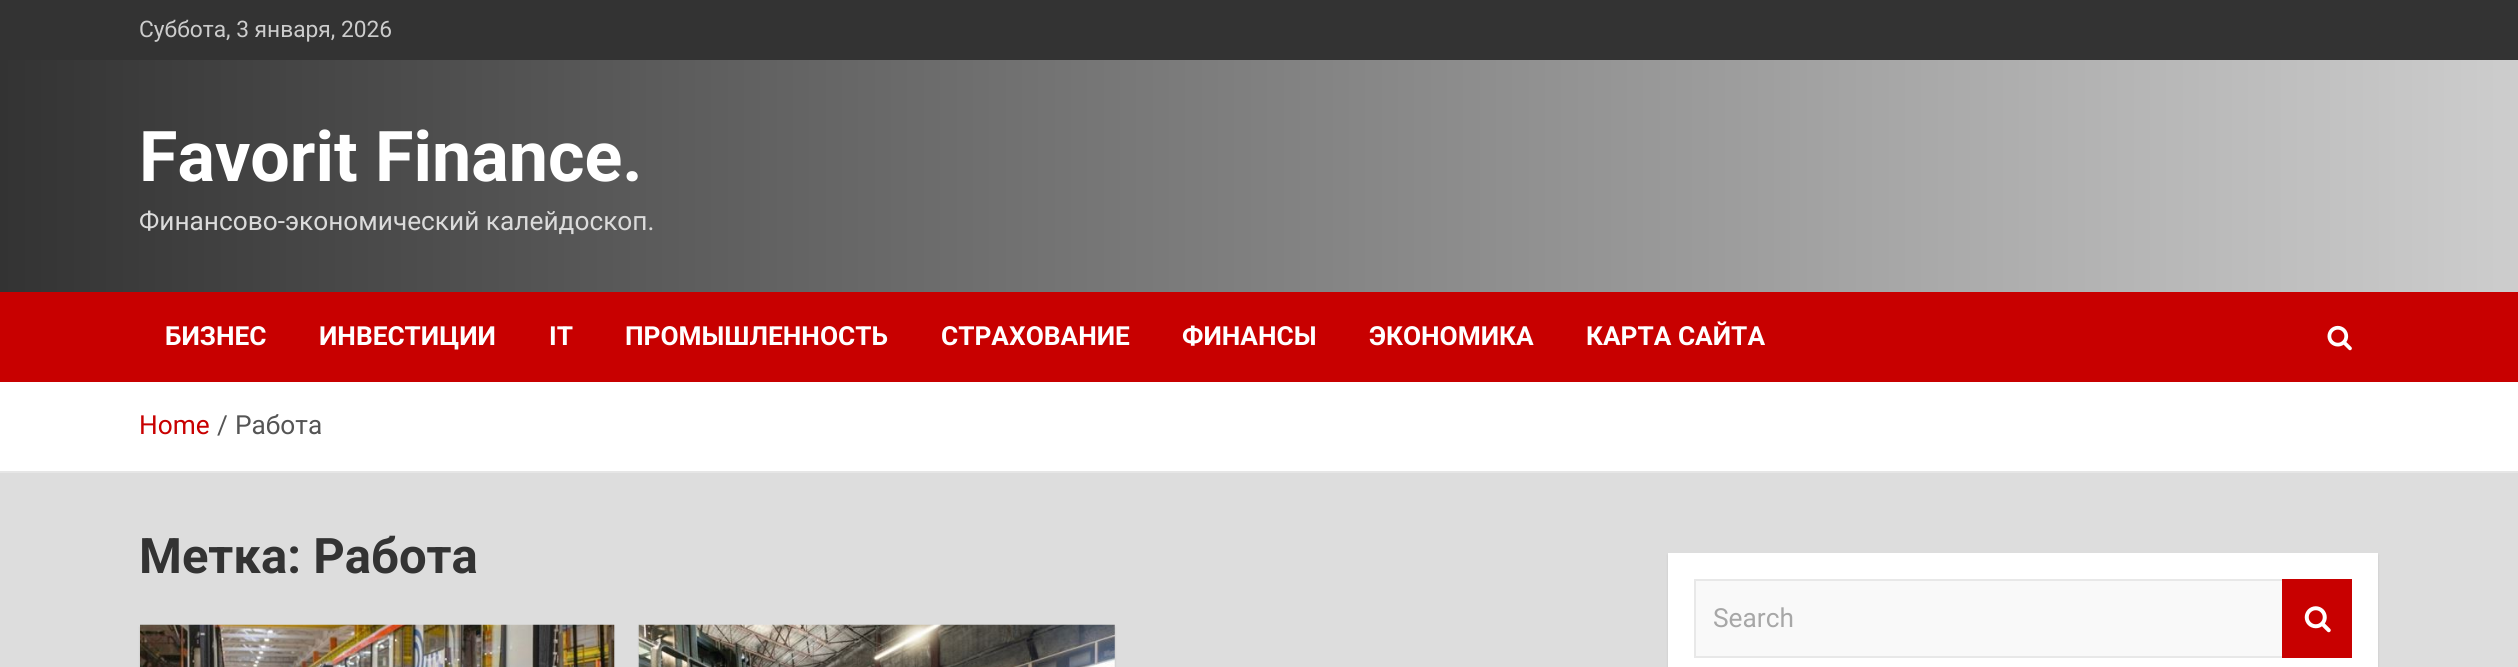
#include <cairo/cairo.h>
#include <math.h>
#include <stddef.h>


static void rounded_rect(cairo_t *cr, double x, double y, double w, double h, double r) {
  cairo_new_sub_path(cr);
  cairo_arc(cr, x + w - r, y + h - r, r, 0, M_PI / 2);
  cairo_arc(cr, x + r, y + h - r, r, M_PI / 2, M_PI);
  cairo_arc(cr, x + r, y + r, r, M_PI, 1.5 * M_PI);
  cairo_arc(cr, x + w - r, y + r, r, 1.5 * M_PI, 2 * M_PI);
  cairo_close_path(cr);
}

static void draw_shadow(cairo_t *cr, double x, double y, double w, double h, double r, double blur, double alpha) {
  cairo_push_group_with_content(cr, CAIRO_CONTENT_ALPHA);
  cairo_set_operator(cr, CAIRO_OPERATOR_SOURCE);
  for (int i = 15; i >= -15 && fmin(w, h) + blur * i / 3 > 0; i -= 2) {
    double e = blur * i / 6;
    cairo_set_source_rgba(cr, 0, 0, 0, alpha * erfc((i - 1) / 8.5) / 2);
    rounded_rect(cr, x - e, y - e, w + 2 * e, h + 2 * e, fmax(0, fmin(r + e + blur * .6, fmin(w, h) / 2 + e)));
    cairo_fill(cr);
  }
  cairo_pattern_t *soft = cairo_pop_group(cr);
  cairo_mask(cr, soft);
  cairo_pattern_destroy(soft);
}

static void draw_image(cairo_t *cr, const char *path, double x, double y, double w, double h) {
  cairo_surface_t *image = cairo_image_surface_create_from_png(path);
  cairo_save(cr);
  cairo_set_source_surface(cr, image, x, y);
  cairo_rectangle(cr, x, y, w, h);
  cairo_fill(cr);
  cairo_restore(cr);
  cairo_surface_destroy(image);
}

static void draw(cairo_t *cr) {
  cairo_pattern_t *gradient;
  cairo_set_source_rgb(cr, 221 / 255.0, 221 / 255.0, 221 / 255.0);
  cairo_paint(cr);
  cairo_set_source_rgb(cr, 51 / 255.0, 51 / 255.0, 51 / 255.0);
  cairo_rectangle(cr, 0, 0, 2518, 60);
  cairo_fill(cr);
  gradient = cairo_pattern_create_linear(0, 176, 2518, 176);
  cairo_pattern_add_color_stop_rgba(gradient, 0, 51 / 255.0, 51 / 255.0, 51 / 255.0, 1);
  cairo_pattern_add_color_stop_rgba(gradient, 1, 205 / 255.0, 205 / 255.0, 205 / 255.0, 1);
  cairo_set_source(cr, gradient);
  cairo_pattern_destroy(gradient);
  cairo_rectangle(cr, 0, 60, 2518, 232);
  cairo_fill(cr);
  cairo_set_source_rgb(cr, 200 / 255.0, 0, 0);
  cairo_rectangle(cr, 0, 292, 2518, 90);
  cairo_fill(cr);
  draw_image(cr, "images/1.png", 2327, 325, 25, 26);
  cairo_set_source_rgb(cr, 1, 1, 1);
  cairo_rectangle(cr, 0, 382, 2518, 89);
  cairo_fill(cr);
  cairo_set_source_rgb(cr, 230 / 255.0, 230 / 255.0, 230 / 255.0);
  cairo_rectangle(cr, 0, 471, 2518, 2);
  cairo_fill(cr);
  cairo_set_source_rgb(cr, 0, 0, 0);
  draw_shadow(cr, 140, 627, 474, 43, 0, 1, 0.1);
  draw_image(cr, "images/2.png", 140, 624, 475, 43);
  draw_shadow(cr, 639, 627, 476, 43, 0, 1, 0.1);
  draw_image(cr, "images/3.png", 638, 624, 477, 43);
  draw_shadow(cr, 1668, 555, 710, 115, 0, 1, 0.1);
  cairo_set_source_rgb(cr, 1, 1, 1);
  cairo_rectangle(cr, 1668, 553, 710, 114);
  cairo_fill(cr);
  cairo_set_source_rgb(cr, 249 / 255.0, 249 / 255.0, 249 / 255.0);
  cairo_rectangle(cr, 1696, 581, 586, 75);
  cairo_fill(cr);
  cairo_set_source_rgb(cr, 232 / 255.0, 232 / 255.0, 232 / 255.0);
  cairo_new_path(cr);
  cairo_move_to(cr, 1694, 579);
  cairo_line_to(cr, 2282, 579);
  cairo_line_to(cr, 2282, 581);
  cairo_line_to(cr, 1696, 581);
  cairo_close_path(cr);
  cairo_fill(cr);
  cairo_new_path(cr);
  cairo_move_to(cr, 2282, 658);
  cairo_line_to(cr, 1694, 658);
  cairo_line_to(cr, 1696, 656);
  cairo_line_to(cr, 2282, 656);
  cairo_close_path(cr);
  cairo_fill(cr);
  cairo_set_source_rgba(cr, 0, 0, 0, 0.09);
  cairo_new_path(cr);
  cairo_move_to(cr, 1694, 658);
  cairo_line_to(cr, 1694, 579);
  cairo_line_to(cr, 1696, 581);
  cairo_line_to(cr, 1696, 656);
  cairo_close_path(cr);
  cairo_fill(cr);
  cairo_set_source_rgb(cr, 200 / 255.0, 0, 0);
  cairo_rectangle(cr, 2282, 579, 70, 79);
  cairo_fill(cr);
  draw_image(cr, "images/4.png", 2304, 606, 27, 27);
  cairo_select_font_face(cr, "Roboto", CAIRO_FONT_SLANT_NORMAL, CAIRO_FONT_WEIGHT_NORMAL);
  cairo_set_font_size(cr, 22.75);
  cairo_set_source_rgb(cr, 204 / 255.0, 204 / 255.0, 204 / 255.0);
  cairo_move_to(cr, 139, 37);
  cairo_show_text(cr, "Суббота, 3 января, 2026");
  cairo_select_font_face(cr, "Roboto", CAIRO_FONT_SLANT_NORMAL, CAIRO_FONT_WEIGHT_BOLD);
  cairo_set_font_size(cr, 70);
  cairo_set_source_rgb(cr, 1, 1, 1);
  cairo_move_to(cr, 139, 181);
  cairo_show_text(cr, "Favorit Finance.");
  cairo_select_font_face(cr, "Roboto", CAIRO_FONT_SLANT_NORMAL, CAIRO_FONT_WEIGHT_NORMAL);
  cairo_set_font_size(cr, 26.25);
  cairo_set_source_rgb(cr, 219 / 255.0, 219 / 255.0, 219 / 255.0);
  cairo_move_to(cr, 139, 230);
  cairo_show_text(cr, "Финансово-экономический калейдоскоп.");
  cairo_select_font_face(cr, "Roboto", CAIRO_FONT_SLANT_NORMAL, CAIRO_FONT_WEIGHT_BOLD);
  cairo_set_source_rgb(cr, 1, 1, 1);
  cairo_move_to(cr, 165, 345);
  cairo_show_text(cr, "БИЗНЕС");
  cairo_move_to(cr, 319, 345);
  cairo_show_text(cr, "ИНВЕСТИЦИИ");
  cairo_move_to(cr, 549, 345);
  cairo_show_text(cr, "IT");
  cairo_move_to(cr, 625, 345);
  cairo_show_text(cr, "ПРОМЫШЛЕННОСТЬ");
  cairo_move_to(cr, 941, 345);
  cairo_show_text(cr, "СТРАХОВАНИЕ");
  cairo_move_to(cr, 1182, 345);
  cairo_show_text(cr, "ФИНАНСЫ");
  cairo_move_to(cr, 1369, 345);
  cairo_show_text(cr, "ЭКОНОМИКА");
  cairo_move_to(cr, 1586, 345);
  cairo_show_text(cr, "КАРТА САЙТА");
  cairo_select_font_face(cr, "Roboto", CAIRO_FONT_SLANT_NORMAL, CAIRO_FONT_WEIGHT_NORMAL);
  cairo_set_source_rgb(cr, 200 / 255.0, 0, 0);
  cairo_move_to(cr, 139, 434);
  cairo_show_text(cr, "Home");
  cairo_set_source_rgb(cr, 85 / 255.0, 85 / 255.0, 85 / 255.0);
  cairo_move_to(cr, 217, 434);
  cairo_show_text(cr, "/");
  cairo_move_to(cr, 235, 434);
  cairo_show_text(cr, "Работа");
  cairo_select_font_face(cr, "Roboto", CAIRO_FONT_SLANT_NORMAL, CAIRO_FONT_WEIGHT_BOLD);
  cairo_set_font_size(cr, 49);
  cairo_set_source_rgb(cr, 51 / 255.0, 51 / 255.0, 51 / 255.0);
  cairo_move_to(cr, 139, 573);
  cairo_show_text(cr, "Метка: Работа");
  cairo_select_font_face(cr, "Roboto", CAIRO_FONT_SLANT_NORMAL, CAIRO_FONT_WEIGHT_NORMAL);
  cairo_set_font_size(cr, 26.25);
  cairo_set_source_rgb(cr, 167 / 255.0, 167 / 255.0, 167 / 255.0);
  cairo_move_to(cr, 1713, 627);
  cairo_show_text(cr, "Search");
}

int main(void) {
  cairo_surface_t *surface = cairo_image_surface_create(CAIRO_FORMAT_RGB24, 2518, 667);
  cairo_t *cr = cairo_create(surface);
  cairo_font_options_t *options = cairo_font_options_create();
  cairo_font_options_set_hint_metrics(options, CAIRO_HINT_METRICS_OFF);
  cairo_font_options_set_hint_style(options, CAIRO_HINT_STYLE_NONE);
  cairo_set_font_options(cr, options);
  cairo_set_miter_limit(cr, 4);
  draw(cr);
  cairo_surface_write_to_png(surface, "out.png");
  cairo_font_options_destroy(options);
  cairo_destroy(cr);
  cairo_surface_destroy(surface);
  return 0;
}
